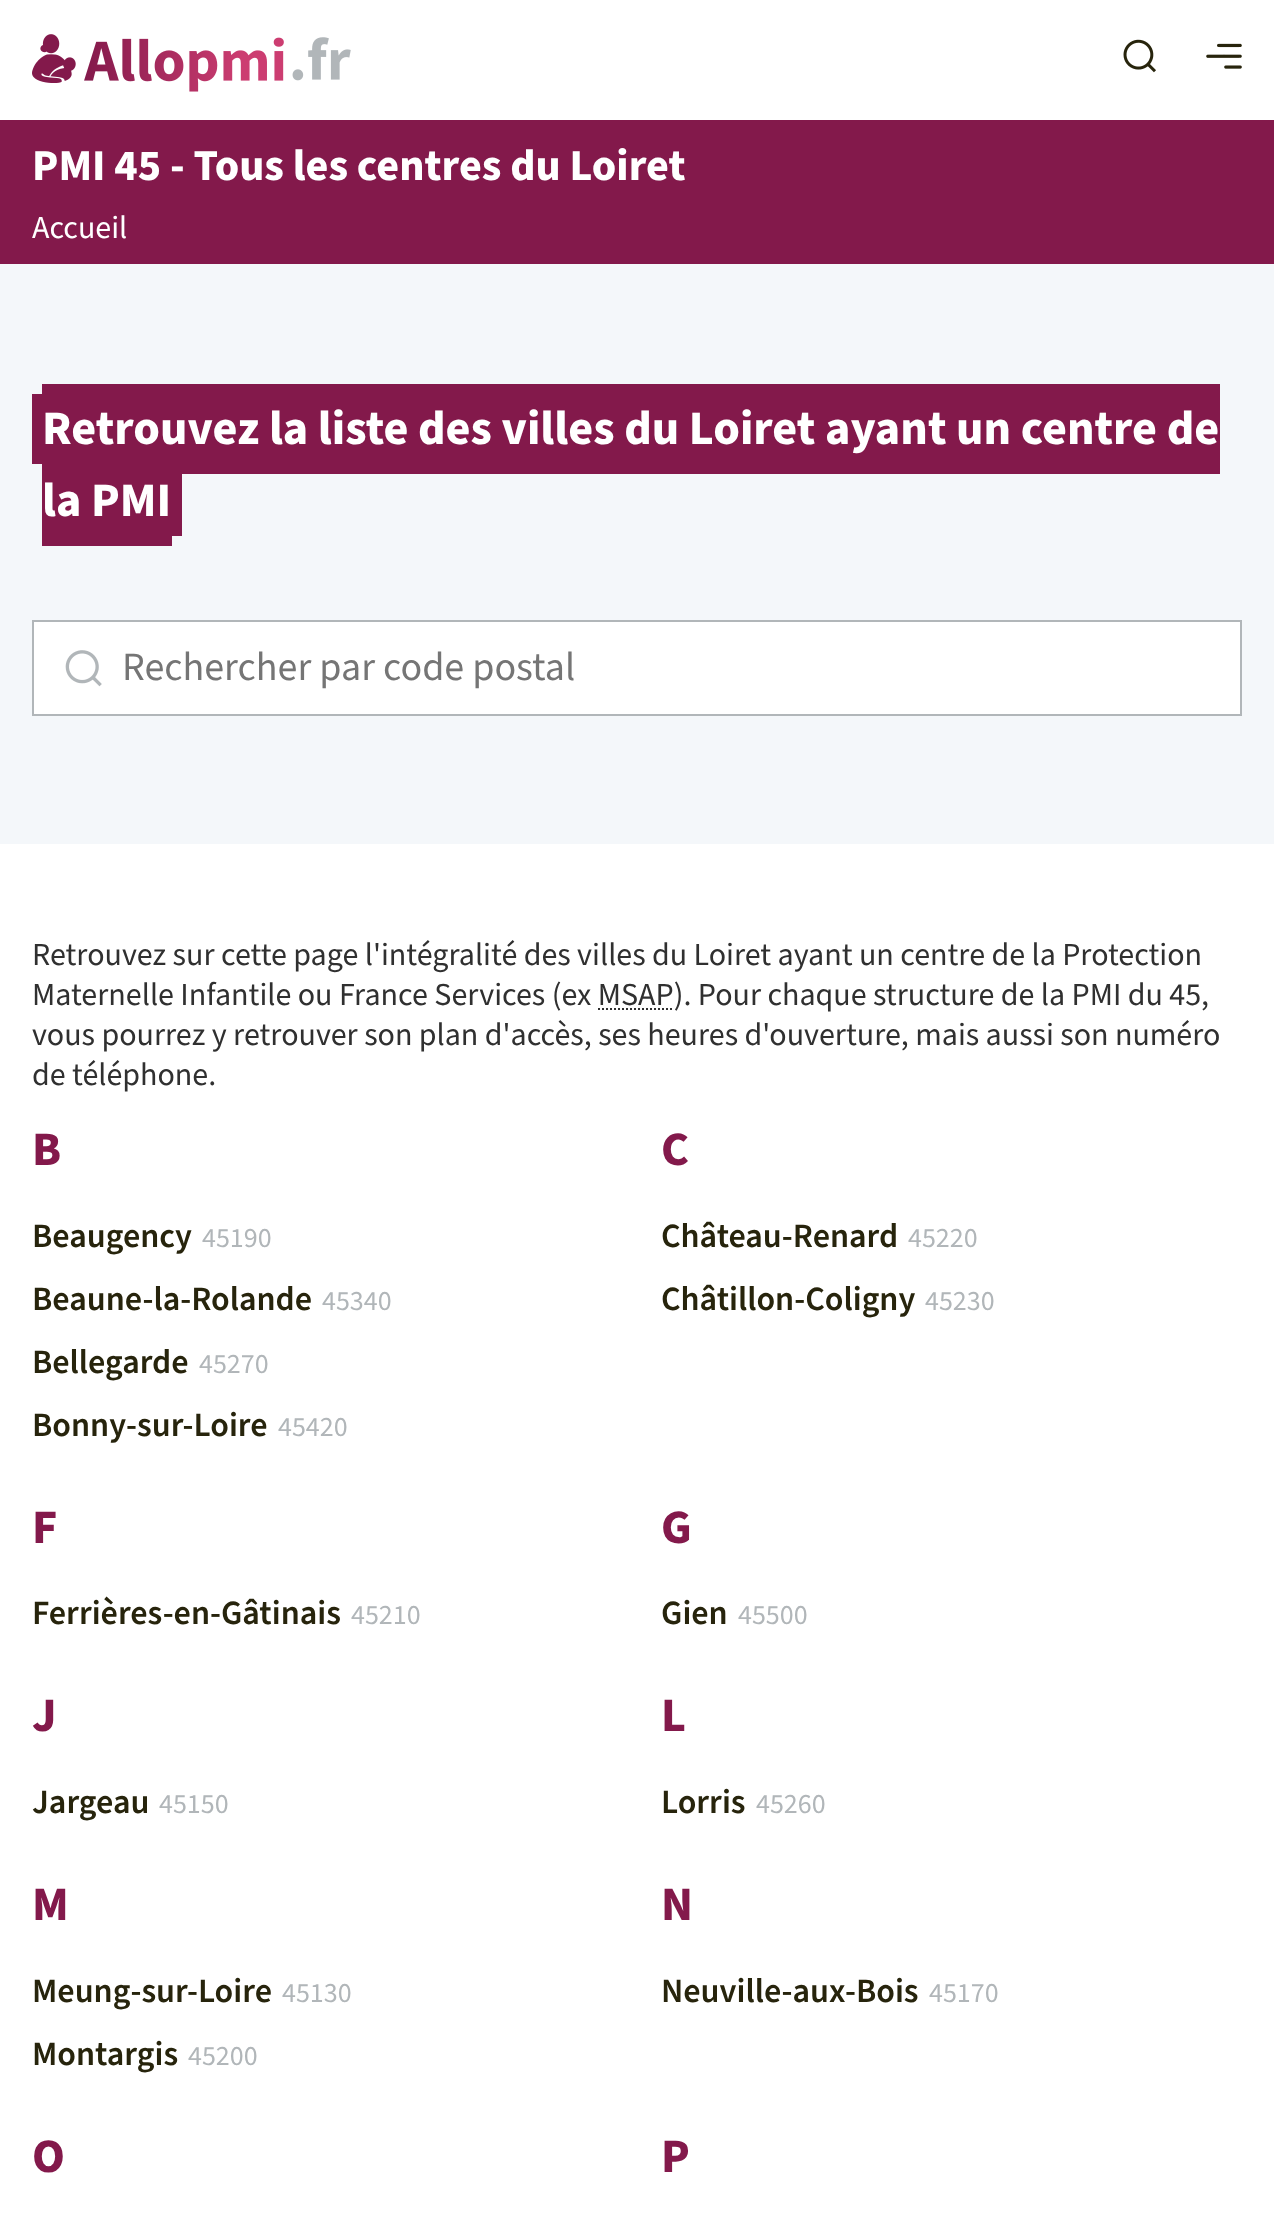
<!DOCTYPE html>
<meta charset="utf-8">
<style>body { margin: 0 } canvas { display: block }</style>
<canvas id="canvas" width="1274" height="2228"></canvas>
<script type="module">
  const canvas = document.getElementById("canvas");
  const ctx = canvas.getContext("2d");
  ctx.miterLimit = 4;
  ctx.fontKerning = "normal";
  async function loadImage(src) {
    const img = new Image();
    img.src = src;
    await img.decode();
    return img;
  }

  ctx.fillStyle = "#ffffff";
  ctx.fillRect(0, 0, 1274, 2228);
  ctx.drawImage(await loadImage("img1.png"), 32, 34, 319, 58);
  ctx.drawImage(await loadImage("img2.png"), 1123, 39, 33, 34);
  ctx.drawImage(await loadImage("img3.png"), 1206, 43, 36, 26);
  ctx.fillStyle = "#83194b";
  ctx.fillRect(0, 120, 1274, 144);
  ctx.font = "bold 44px Source Sans Pro";
  ctx.fillStyle = "#ffffff";
  ctx.fillText("PMI 45 - Tous les centres du Loiret", 32, 180);
  ctx.font = "32px Source Sans Pro";
  ctx.fillText("Accueil", 32, 238);
  ctx.fillStyle = "#f4f7fa";
  ctx.fillRect(0, 264, 1274, 580);
  ctx.fillStyle = "#83194b";
  ctx.fillRect(42, 384, 1178, 90);
  ctx.font = "bold 48px Source Sans Pro";
  ctx.fillStyle = "#ffffff";
  ctx.fillText("Retrouvez la liste des villes du Loiret ayant un centre de", 42, 444);
  ctx.fillStyle = "#83194b";
  ctx.fillRect(32, 394, 10, 70);
  ctx.fillRect(42, 474, 130, 72);
  ctx.fillStyle = "#ffffff";
  ctx.fillText("la PMI", 42, 516);
  ctx.fillStyle = "#83194b";
  ctx.fillRect(172, 474, 10, 62);
  ctx.fillStyle = "#ffffff";
  ctx.beginPath();
  ctx.rect(33, 621, 1208, 94);
  ctx.fill();
  ctx.strokeStyle = "#b1b6b9";
  ctx.lineWidth = 2;
  ctx.stroke();
  ctx.drawImage(await loadImage("img4.png"), 65, 650, 37, 37);
  ctx.font = "40px Source Sans Pro";
  ctx.fillStyle = "#757575";
  ctx.fillText("Rechercher par code postal", 122, 680);
  ctx.font = "32px Source Sans Pro";
  ctx.fillStyle = "#303030";
  ctx.fillText("Retrouvez sur cette page l'intégralité des villes du Loiret ayant un centre de la Protection", 32, 965);
  ctx.fillText("Maternelle Infantile ou France Services (ex MSAP). Pour chaque structure de la PMI du 45,", 32, 1005);
  ctx.beginPath();
  ctx.moveTo(598, 1009);
  ctx.lineTo(673.5, 1009);
  ctx.strokeStyle = "#303030";
  ctx.setLineDash([2, 2]);
  ctx.stroke();
  ctx.fillText("vous pourrez y retrouver son plan d'accès, ses heures d'ouverture, mais aussi son numéro", 32, 1045);
  ctx.fillText("de téléphone.", 32, 1085);
  ctx.font = "bold 48px Source Sans Pro";
  ctx.fillStyle = "#83194b";
  ctx.fillText("B", 32, 1165);
  ctx.font = "600 34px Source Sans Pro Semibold";
  ctx.fillStyle = "#27240c";
  ctx.fillText("Beaugency", 32, 1247);
  ctx.font = "28px Source Sans Pro";
  ctx.fillStyle = "#b1b6b9";
  ctx.fillText("45190", 202, 1247);
  ctx.font = "600 34px Source Sans Pro Semibold";
  ctx.fillStyle = "#27240c";
  ctx.fillText("Beaune-la-Rolande", 32, 1310);
  ctx.font = "28px Source Sans Pro";
  ctx.fillStyle = "#b1b6b9";
  ctx.fillText("45340", 322, 1310);
  ctx.font = "600 34px Source Sans Pro Semibold";
  ctx.fillStyle = "#27240c";
  ctx.fillText("Bellegarde", 32, 1373);
  ctx.font = "28px Source Sans Pro";
  ctx.fillStyle = "#b1b6b9";
  ctx.fillText("45270", 199, 1373);
  ctx.font = "600 34px Source Sans Pro Semibold";
  ctx.fillStyle = "#27240c";
  ctx.fillText("Bonny-sur-Loire", 32, 1436);
  ctx.font = "28px Source Sans Pro";
  ctx.fillStyle = "#b1b6b9";
  ctx.fillText("45420", 278, 1436);
  ctx.font = "bold 48px Source Sans Pro";
  ctx.fillStyle = "#83194b";
  ctx.fillText("C", 661, 1165);
  ctx.font = "600 34px Source Sans Pro Semibold";
  ctx.fillStyle = "#27240c";
  ctx.fillText("Château-Renard", 661, 1247);
  ctx.font = "28px Source Sans Pro";
  ctx.fillStyle = "#b1b6b9";
  ctx.fillText("45220", 908, 1247);
  ctx.font = "600 34px Source Sans Pro Semibold";
  ctx.fillStyle = "#27240c";
  ctx.fillText("Châtillon-Coligny", 661, 1310);
  ctx.font = "28px Source Sans Pro";
  ctx.fillStyle = "#b1b6b9";
  ctx.fillText("45230", 925, 1310);
  ctx.font = "bold 48px Source Sans Pro";
  ctx.fillStyle = "#83194b";
  ctx.fillText("F", 32, 1543);
  ctx.font = "600 34px Source Sans Pro Semibold";
  ctx.fillStyle = "#27240c";
  ctx.fillText("Ferrières-en-Gâtinais", 32, 1624);
  ctx.font = "28px Source Sans Pro";
  ctx.fillStyle = "#b1b6b9";
  ctx.fillText("45210", 351, 1624);
  ctx.font = "bold 48px Source Sans Pro";
  ctx.fillStyle = "#83194b";
  ctx.fillText("G", 661, 1543);
  ctx.font = "600 34px Source Sans Pro Semibold";
  ctx.fillStyle = "#27240c";
  ctx.fillText("Gien", 661, 1624);
  ctx.font = "28px Source Sans Pro";
  ctx.fillStyle = "#b1b6b9";
  ctx.fillText("45500", 738, 1624);
  ctx.font = "bold 48px Source Sans Pro";
  ctx.fillStyle = "#83194b";
  ctx.fillText("J", 32, 1731);
  ctx.font = "600 34px Source Sans Pro Semibold";
  ctx.fillStyle = "#27240c";
  ctx.fillText("Jargeau", 32, 1813);
  ctx.font = "28px Source Sans Pro";
  ctx.fillStyle = "#b1b6b9";
  ctx.fillText("45150", 159, 1813);
  ctx.font = "bold 48px Source Sans Pro";
  ctx.fillStyle = "#83194b";
  ctx.fillText("L", 661, 1731);
  ctx.font = "600 34px Source Sans Pro Semibold";
  ctx.fillStyle = "#27240c";
  ctx.fillText("Lorris", 661, 1813);
  ctx.font = "28px Source Sans Pro";
  ctx.fillStyle = "#b1b6b9";
  ctx.fillText("45260", 756, 1813);
  ctx.font = "bold 48px Source Sans Pro";
  ctx.fillStyle = "#83194b";
  ctx.fillText("M", 32, 1920);
  ctx.font = "600 34px Source Sans Pro Semibold";
  ctx.fillStyle = "#27240c";
  ctx.fillText("Meung-sur-Loire", 32, 2002);
  ctx.font = "28px Source Sans Pro";
  ctx.fillStyle = "#b1b6b9";
  ctx.fillText("45130", 282, 2002);
  ctx.font = "600 34px Source Sans Pro Semibold";
  ctx.fillStyle = "#27240c";
  ctx.fillText("Montargis", 32, 2065);
  ctx.font = "28px Source Sans Pro";
  ctx.fillStyle = "#b1b6b9";
  ctx.fillText("45200", 188, 2065);
  ctx.font = "bold 48px Source Sans Pro";
  ctx.fillStyle = "#83194b";
  ctx.fillText("N", 661, 1920);
  ctx.font = "600 34px Source Sans Pro Semibold";
  ctx.fillStyle = "#27240c";
  ctx.fillText("Neuville-aux-Bois", 661, 2002);
  ctx.font = "28px Source Sans Pro";
  ctx.fillStyle = "#b1b6b9";
  ctx.fillText("45170", 929, 2002);
  ctx.font = "bold 48px Source Sans Pro";
  ctx.fillStyle = "#83194b";
  ctx.fillText("O", 32, 2172);
  ctx.fillText("P", 661, 2172);
</script>
